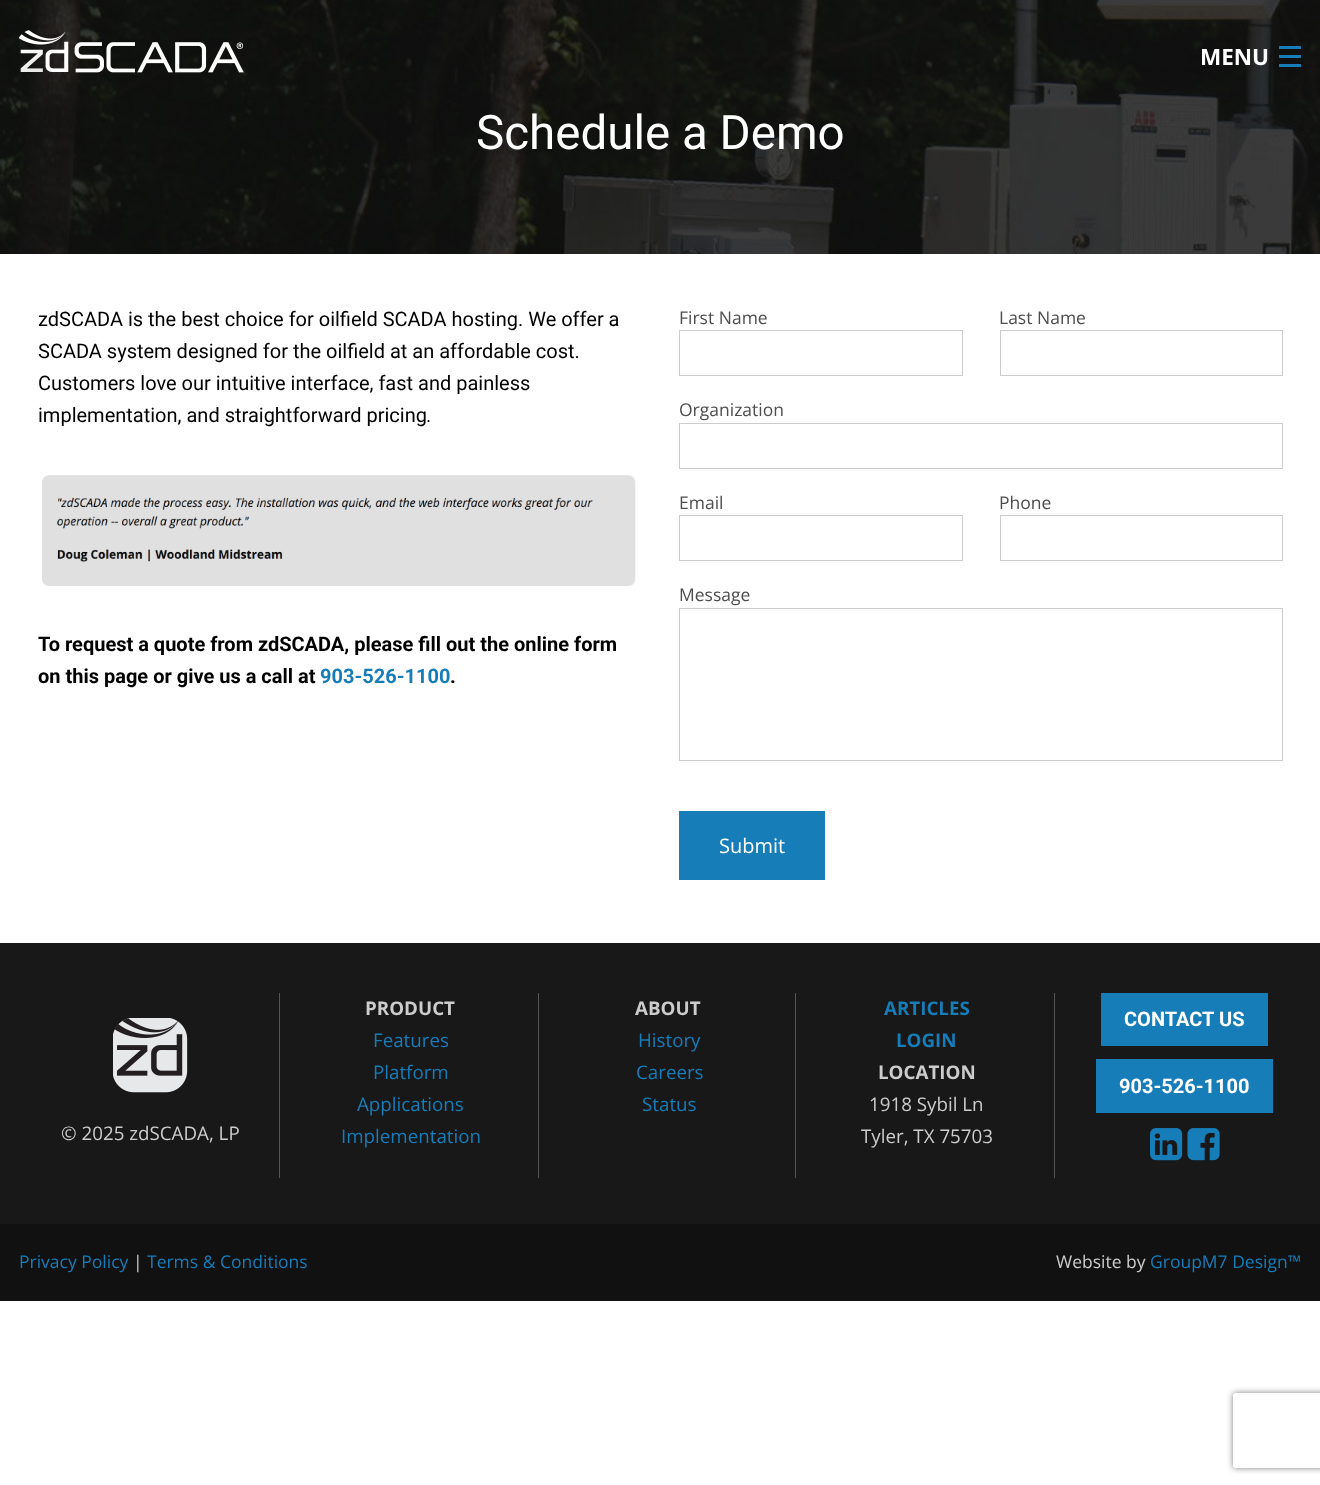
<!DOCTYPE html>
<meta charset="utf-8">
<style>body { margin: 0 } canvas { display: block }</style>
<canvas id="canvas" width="1320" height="1485"></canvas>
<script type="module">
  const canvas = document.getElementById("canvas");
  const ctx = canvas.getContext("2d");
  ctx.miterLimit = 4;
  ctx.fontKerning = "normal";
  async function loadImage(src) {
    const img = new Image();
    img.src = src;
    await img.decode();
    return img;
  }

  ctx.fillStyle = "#ffffff";
  ctx.fillRect(0, 0, 1320, 1485);
  ctx.drawImage(await loadImage("img1.png"), 0, 0, 1320, 254);
  ctx.drawImage(await loadImage("img2.png"), 19, 30, 225, 43);
  ctx.font = "bold 22.5px Open Sans";
  ctx.fillText("MENU", 1200, 65);
  ctx.fillStyle = "#167db9";
  ctx.fillRect(1279, 64, 22, 3);
  ctx.fillRect(1279, 55, 22, 3);
  ctx.fillRect(1279, 46, 22, 3);
  ctx.font = "47.5px Roboto";
  ctx.fillStyle = "#ffffff";
  ctx.fillText("Schedule a Demo", 476, 149);
  ctx.font = "20px Roboto";
  ctx.fillStyle = "#000000";
  ctx.fillText("zdSCADA is the best choice for oilfield SCADA hosting. We offer a", 38, 326);
  ctx.fillText("SCADA system designed for the oilfield at an affordable cost.", 38, 358);
  ctx.fillText("Customers love our intuitive interface, fast and painless", 38, 390);
  ctx.fillText("implementation, and straightforward pricing", 38, 422);
  ctx.font = "18px Liberation Sans";
  ctx.fillText(".", 426, 422);
  ctx.drawImage(await loadImage("img3.png"), 42, 475, 594, 111);
  ctx.font = "bold 20px Roboto";
  ctx.fillText("To request a quote from zdSCADA, please fill out the online form", 38, 651);
  ctx.fillText("on this page or give us a call at", 38, 683);
  ctx.fillStyle = "#167db9";
  ctx.fillText("903-526-1100", 320, 683);
  ctx.fillStyle = "#000000";
  ctx.fillText(".", 450, 683);
  ctx.font = "17.5px Open Sans";
  ctx.fillStyle = "#4d4d4d";
  ctx.fillText("First Name", 679, 324);
  ctx.strokeStyle = "#cccccc";
  ctx.strokeRect(679.5, 330.5, 283, 45);
  ctx.fillText("Last Name", 999, 324);
  ctx.strokeRect(1000.5, 330.5, 282, 45);
  ctx.fillText("Organization", 679, 416);
  ctx.strokeRect(679.5, 423.5, 603, 45);
  ctx.fillText("Email", 679, 509);
  ctx.strokeRect(679.5, 515.5, 283, 45);
  ctx.fillText("Phone", 999, 509);
  ctx.strokeRect(1000.5, 515.5, 282, 45);
  ctx.fillText("Message", 679, 601);
  ctx.strokeRect(679.5, 608.5, 603, 152);
  ctx.fillStyle = "#167db9";
  ctx.fillRect(679, 811, 146, 69);
  ctx.font = "20px Open Sans";
  ctx.fillStyle = "#ffffff";
  ctx.fillText("Submit", 719, 853);
  ctx.fillStyle = "#181818";
  ctx.fillRect(0, 943, 1320, 281);
  ctx.fillStyle = "#555555";
  ctx.fillRect(538, 993, 1, 185);
  ctx.font = "bold 18.75px Open Sans";
  ctx.fillStyle = "#cccccc";
  ctx.fillText("PRODUCT", 365, 1015);
  ctx.font = "18.75px Open Sans";
  ctx.fillStyle = "#167db9";
  ctx.fillText("Features", 373, 1047);
  ctx.fillText("Platform", 373, 1079);
  ctx.fillText("Applications", 357, 1111);
  ctx.fillText("Implementation", 341, 1143);
  ctx.fillStyle = "#555555";
  ctx.fillRect(795, 993, 1, 185);
  ctx.font = "bold 18.75px Open Sans";
  ctx.fillStyle = "#cccccc";
  ctx.fillText("ABOUT", 635, 1015);
  ctx.font = "18.75px Open Sans";
  ctx.fillStyle = "#167db9";
  ctx.fillText("History", 638, 1047);
  ctx.fillText("Careers", 636, 1079);
  ctx.fillText("Status", 642, 1111);
  ctx.fillStyle = "#555555";
  ctx.fillRect(1054, 993, 1, 185);
  ctx.font = "bold 18.75px Open Sans";
  ctx.fillStyle = "#167db9";
  ctx.fillText("ARTICLES", 884, 1015);
  ctx.fillText("LOGIN", 896, 1047);
  ctx.fillStyle = "#cccccc";
  ctx.fillText("LOCATION", 878, 1079);
  ctx.font = "18.75px Open Sans";
  ctx.fillText("1918 Sybil Ln", 869, 1111);
  ctx.fillText("Tyler, TX 75703", 861, 1143);
  ctx.fillStyle = "#167db9";
  ctx.fillRect(1101, 993, 167, 53);
  ctx.font = "bold 20px Roboto";
  ctx.fillStyle = "#ffffff";
  ctx.fillText("CONTACT US", 1124, 1026);
  ctx.fillStyle = "#167db9";
  ctx.fillRect(1096, 1059, 177, 54);
  ctx.fillStyle = "#ffffff";
  ctx.fillText("903-526-1100", 1119, 1093);
  ctx.drawImage(await loadImage("img4.png"), 1150, 1128, 33, 33);
  ctx.drawImage(await loadImage("img5.png"), 1187, 1128, 33, 33);
  ctx.fillStyle = "#555555";
  ctx.fillRect(279, 993, 1, 185);
  ctx.drawImage(await loadImage("img6.png"), 113, 1018, 75, 75);
  ctx.font = "18.75px Open Sans";
  ctx.fillStyle = "#cccccc";
  ctx.fillText("© 2025 zdSCADA, LP", 61, 1140);
  ctx.fillStyle = "#111111";
  ctx.fillRect(0, 1224, 1320, 77);
  ctx.font = "17.5px Open Sans";
  ctx.fillStyle = "#167db9";
  ctx.fillText("Privacy Policy", 19, 1268);
  ctx.fillStyle = "#cccccc";
  ctx.fillText("|", 133, 1268);
  ctx.fillStyle = "#167db9";
  ctx.fillText("Terms & Conditions", 147, 1268);
  ctx.fillStyle = "#cccccc";
  ctx.fillText("Website by", 1056, 1268);
  ctx.fillStyle = "#167db9";
  ctx.fillText("GroupM7 Design™", 1150, 1268);
  ctx.save();
  ctx.beginPath();
  ctx.moveTo(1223, 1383);
  ctx.lineTo(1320, 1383);
  ctx.lineTo(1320, 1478);
  ctx.lineTo(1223, 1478);
  ctx.closePath();
  ctx.moveTo(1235.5, 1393);
  ctx.lineTo(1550.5, 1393);
  ctx.bezierCurveTo(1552, 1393, 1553, 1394, 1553, 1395.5);
  ctx.lineTo(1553, 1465.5);
  ctx.bezierCurveTo(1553, 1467, 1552, 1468, 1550.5, 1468);
  ctx.lineTo(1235.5, 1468);
  ctx.bezierCurveTo(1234, 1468, 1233, 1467, 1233, 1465.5);
  ctx.lineTo(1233, 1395.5);
  ctx.bezierCurveTo(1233, 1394, 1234, 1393, 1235.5, 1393);
  ctx.closePath();
  ctx.clip("evenodd");
  ctx.fillStyle = "#808080";
  ctx.filter = "blur(3px)";
  ctx.beginPath();
  ctx.roundRect(1233, 1393, 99, 75, 2.5);
  ctx.fill();
  ctx.filter = "none";
  ctx.restore();
</script>
